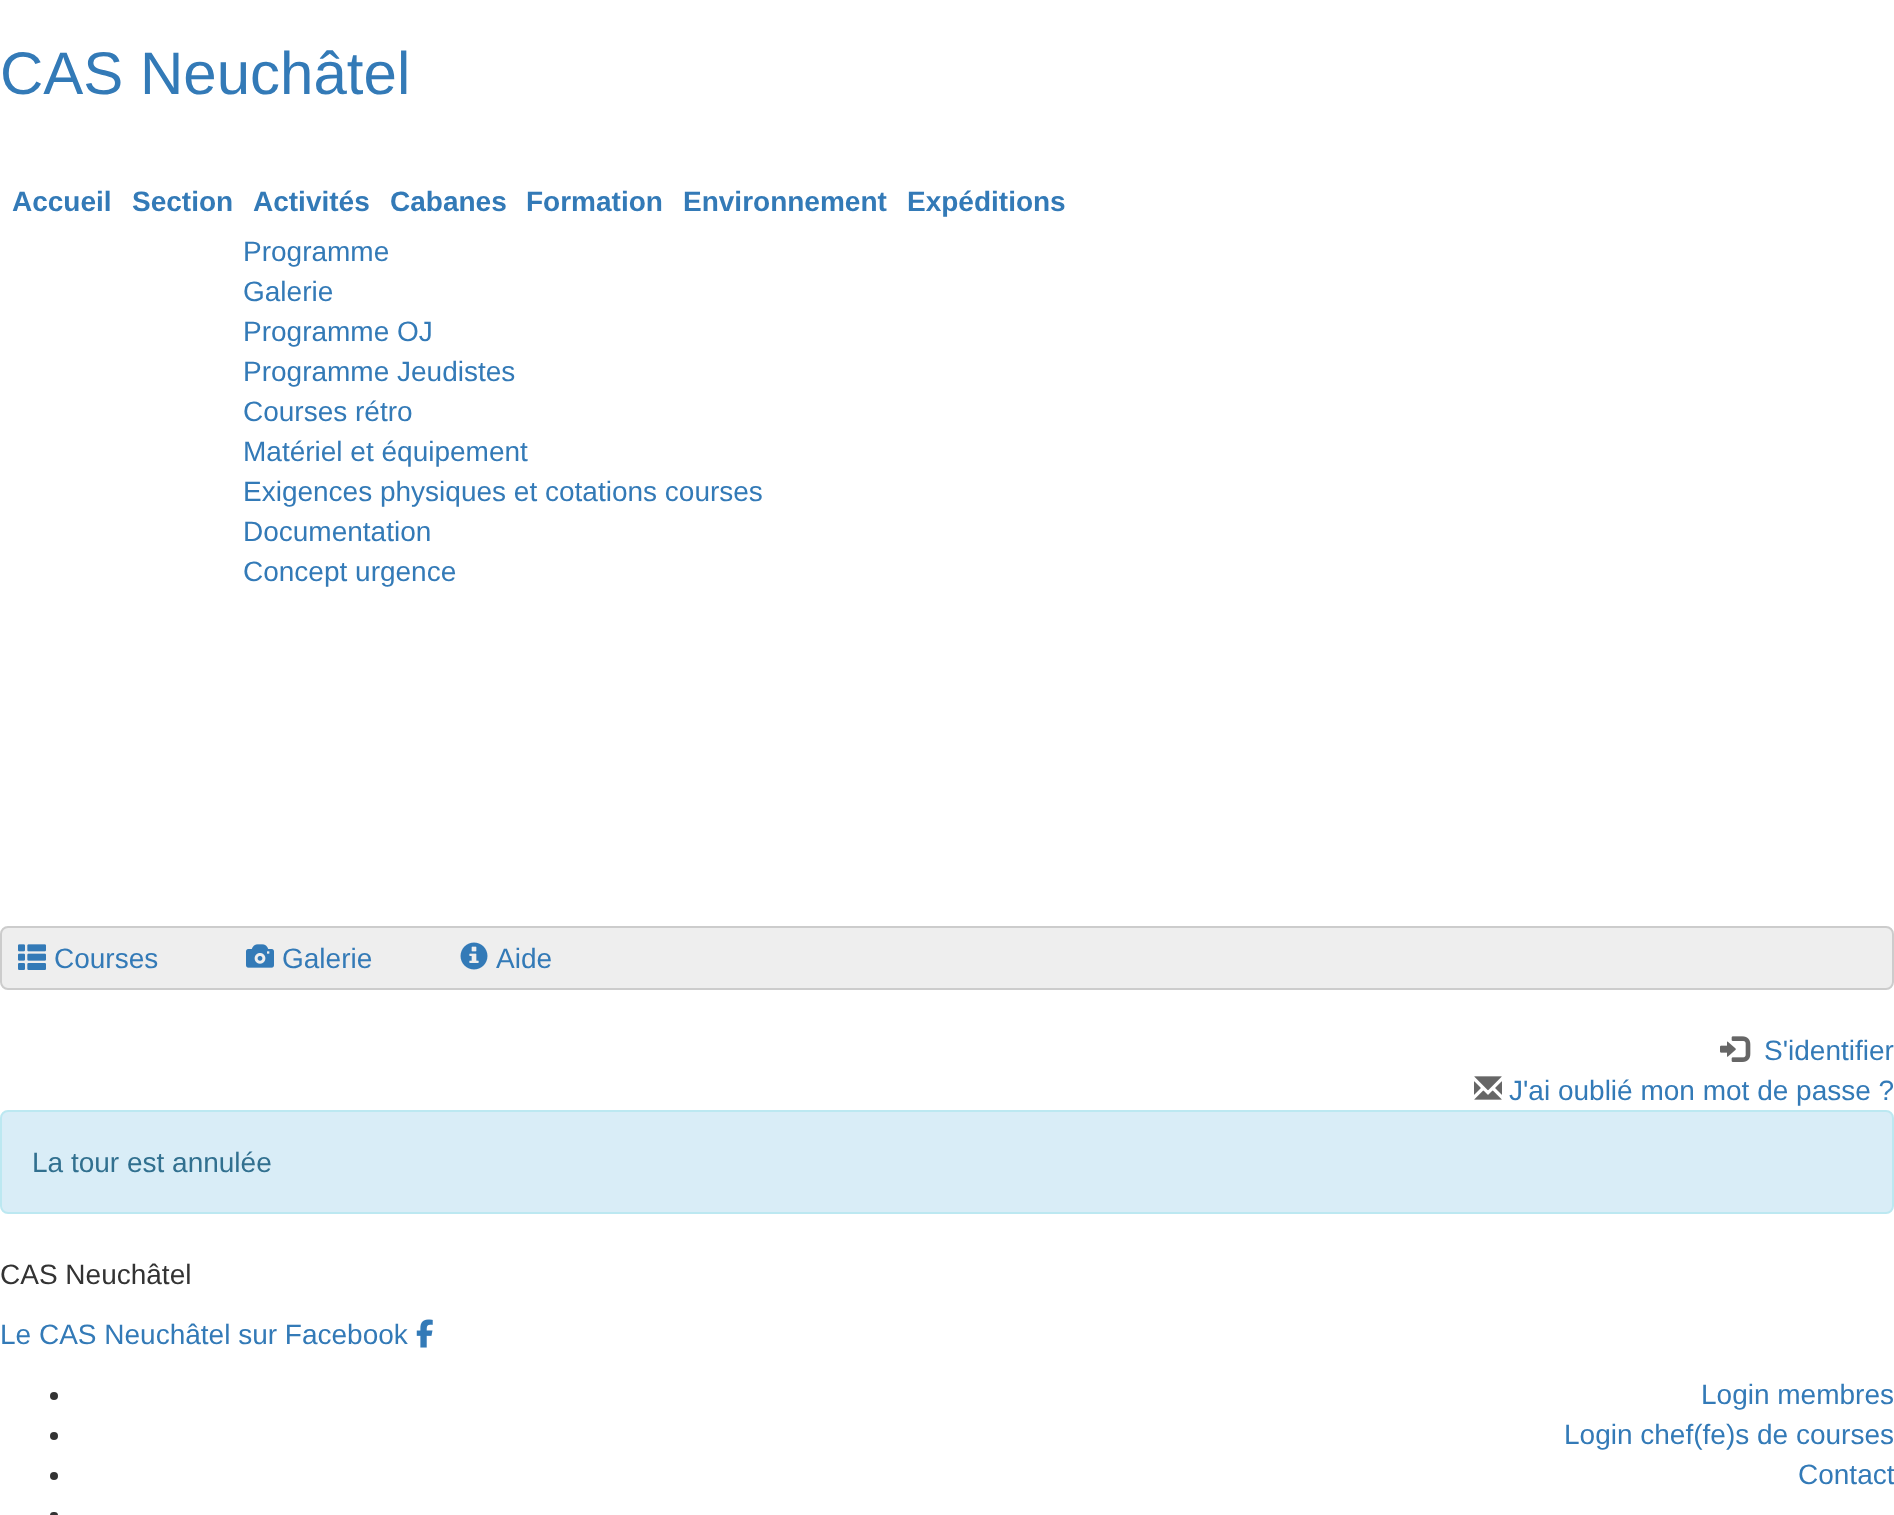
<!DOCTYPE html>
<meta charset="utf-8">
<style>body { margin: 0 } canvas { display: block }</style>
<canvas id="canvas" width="1894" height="1515"></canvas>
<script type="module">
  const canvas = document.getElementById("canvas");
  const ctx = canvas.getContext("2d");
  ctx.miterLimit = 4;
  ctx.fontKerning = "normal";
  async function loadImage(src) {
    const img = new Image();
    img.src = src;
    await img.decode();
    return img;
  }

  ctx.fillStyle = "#ffffff";
  ctx.fillRect(0, 0, 1894, 1515);
  ctx.font = "60px Liberation Sans";
  ctx.fillStyle = "#337ab7";
  ctx.fillText("CAS Neuchâtel", 0, 94);
  ctx.font = "bold 28px Liberation Sans";
  ctx.fillText("Accueil", 12, 211);
  ctx.fillText("Section", 132, 211);
  ctx.fillText("Activités", 253, 211);
  ctx.font = "28px Liberation Sans";
  ctx.fillText("Programme", 243, 261);
  ctx.fillText("Galerie", 243, 301);
  ctx.fillText("Programme OJ", 243, 341);
  ctx.fillText("Programme Jeudistes", 243, 381);
  ctx.fillText("Courses rétro", 243, 421);
  ctx.fillText("Matériel et équipement", 243, 461);
  ctx.fillText("Exigences physiques et cotations courses", 243, 501);
  ctx.fillText("Documentation", 243, 541);
  ctx.fillText("Concept urgence", 243, 581);
  ctx.font = "bold 28px Liberation Sans";
  ctx.fillText("Cabanes", 390, 211);
  ctx.fillText("Formation", 526, 211);
  ctx.fillText("Environnement", 683, 211);
  ctx.fillText("Expéditions", 907, 211);
  ctx.fillStyle = "#eeeeee";
  ctx.beginPath();
  ctx.roundRect(1, 927, 1892, 62, 7);
  ctx.fill();
  ctx.strokeStyle = "#cccccc";
  ctx.lineWidth = 2;
  ctx.stroke();
  ctx.drawImage(await loadImage("img1.png"), 18, 944, 28, 26);
  ctx.font = "28px Liberation Sans";
  ctx.fillStyle = "#337ab7";
  ctx.fillText("Courses", 54, 968);
  ctx.drawImage(await loadImage("img2.png"), 246, 944, 28, 24);
  ctx.fillText("Galerie", 282, 968);
  ctx.drawImage(await loadImage("img3.png"), 460, 942, 28, 28);
  ctx.fillText("Aide", 496, 968);
  ctx.drawImage(await loadImage("img4.png"), 1720, 1036, 31, 26);
  ctx.fillText("S'identifier", 1764, 1060);
  ctx.drawImage(await loadImage("img5.png"), 1474, 1076, 28, 24);
  ctx.fillText("J'ai oublié mon mot de passe ?", 1509, 1100);
  ctx.fillStyle = "#d9edf7";
  ctx.beginPath();
  ctx.roundRect(1, 1111, 1892, 102, 7);
  ctx.fill();
  ctx.strokeStyle = "#bce8f1";
  ctx.stroke();
  ctx.fillStyle = "#31708f";
  ctx.fillText("La tour est annulée", 32, 1172);
  ctx.fillStyle = "#333333";
  ctx.fillText("CAS Neuchâtel", 0, 1284);
  ctx.fillStyle = "#337ab7";
  ctx.fillText("Le CAS Neuchâtel sur Facebook", 0, 1344);
  ctx.drawImage(await loadImage("img6.png"), 416, 1319, 17, 29);
  ctx.fillStyle = "#333333";
  ctx.beginPath();
  ctx.arc(54, 1396, 4, 0, Math.PI * 2);
  ctx.fill();
  ctx.fillStyle = "#337ab7";
  ctx.fillText("Login membres", 1701, 1404);
  ctx.fillStyle = "#333333";
  ctx.beginPath();
  ctx.arc(54, 1436, 4, 0, Math.PI * 2);
  ctx.fill();
  ctx.fillStyle = "#337ab7";
  ctx.fillText("Login chef(fe)s de courses", 1564, 1444);
  ctx.fillStyle = "#333333";
  ctx.beginPath();
  ctx.arc(54, 1476, 4, 0, Math.PI * 2);
  ctx.fill();
  ctx.fillStyle = "#337ab7";
  ctx.fillText("Contact", 1798, 1484);
  ctx.fillStyle = "#333333";
  ctx.beginPath();
  ctx.roundRect(50, 1512, 8, 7, 4);
  ctx.fill();
</script>
